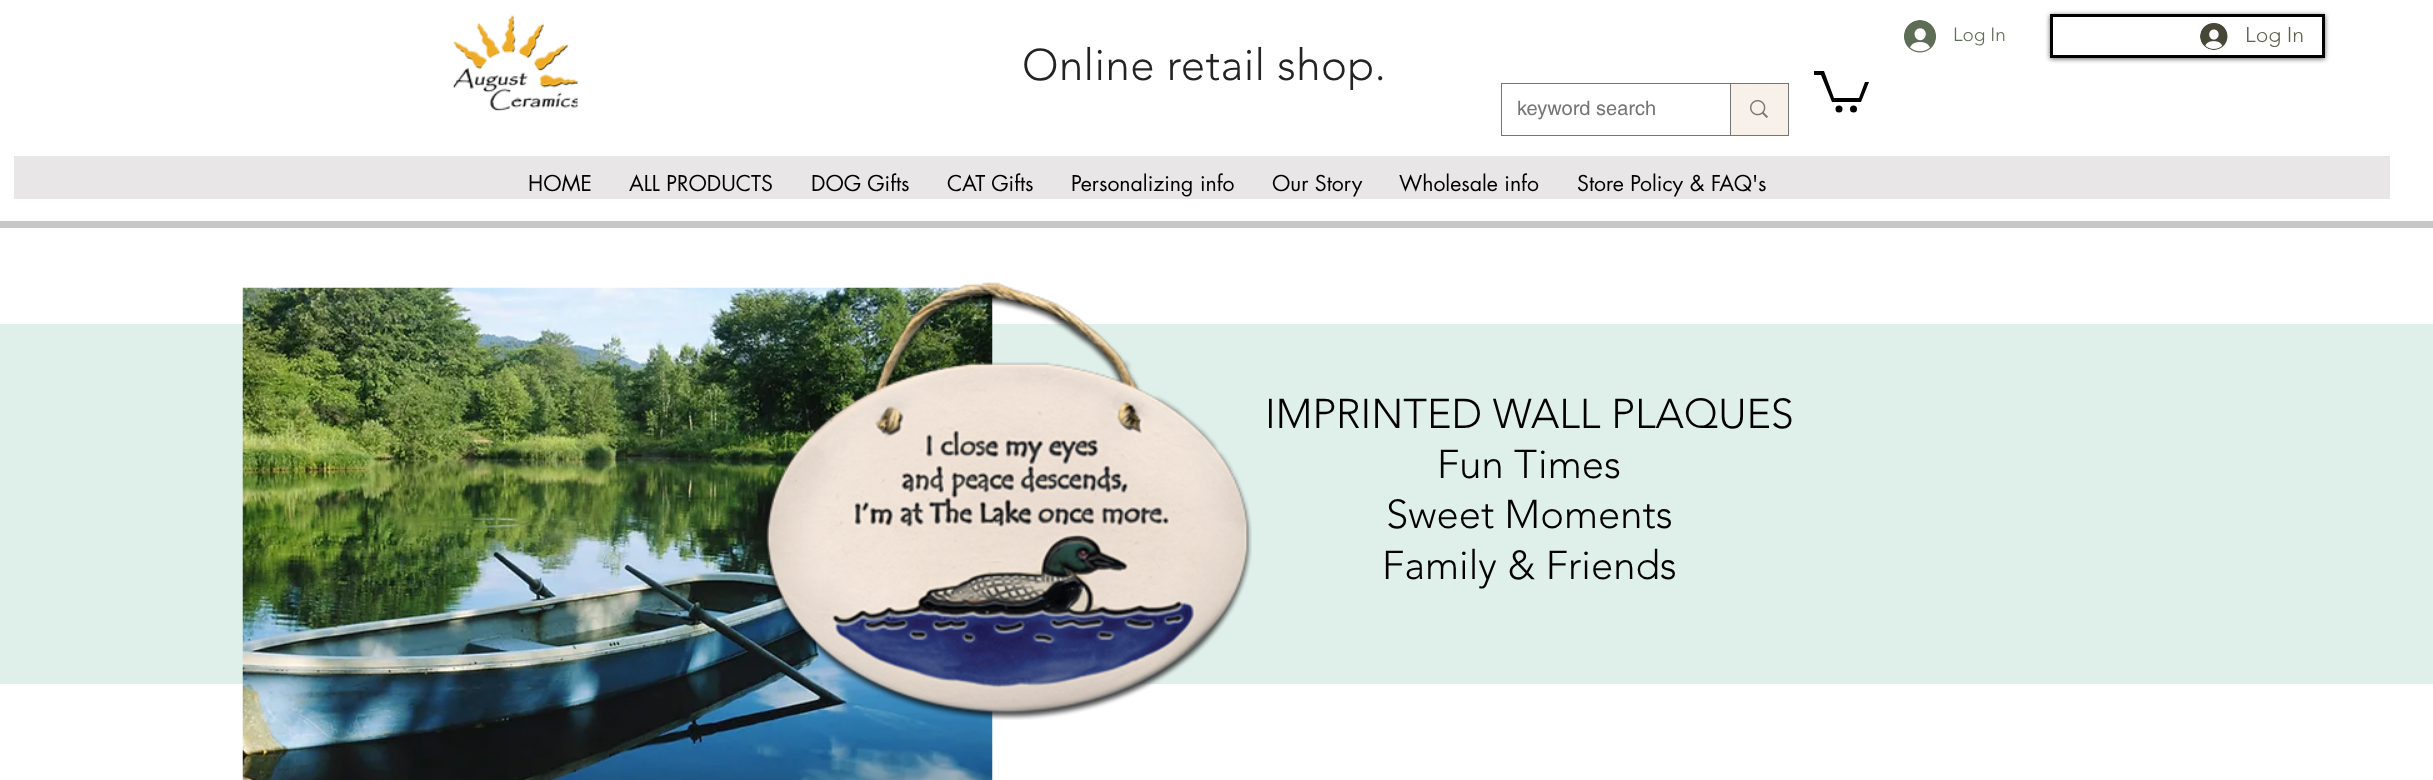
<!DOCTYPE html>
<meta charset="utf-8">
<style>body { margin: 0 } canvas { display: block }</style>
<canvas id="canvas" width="2433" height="780"></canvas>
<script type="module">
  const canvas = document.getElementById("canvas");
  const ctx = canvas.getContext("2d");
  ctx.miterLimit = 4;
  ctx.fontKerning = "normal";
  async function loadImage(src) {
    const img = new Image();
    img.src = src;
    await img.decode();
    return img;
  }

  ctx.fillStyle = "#ffffff";
  ctx.fillRect(0, 0, 2433, 780);
  ctx.drawImage(await loadImage("img1.png"), 453, 14, 125, 97);
  ctx.drawImage(await loadImage("img2.png"), 1904, 20, 32, 33);
  ctx.font = "300 19px 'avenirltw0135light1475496'";
  ctx.fillStyle = "#5e6d55";
  ctx.fillText("Log In", 1953, 41);
  ctx.save();
  ctx.beginPath();
  ctx.moveTo(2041, 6);
  ctx.lineTo(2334, 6);
  ctx.lineTo(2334, 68);
  ctx.lineTo(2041, 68);
  ctx.closePath();
  ctx.moveTo(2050, 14);
  ctx.lineTo(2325, 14);
  ctx.lineTo(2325, 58);
  ctx.lineTo(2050, 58);
  ctx.closePath();
  ctx.clip("evenodd");
  ctx.fillStyle = "rgba(0, 0, 0, 0.6)";
  ctx.filter = "blur(2.5px)";
  ctx.beginPath();
  ctx.rect(2050, 15, 275, 44);
  ctx.fill();
  ctx.filter = "none";
  ctx.restore();
  ctx.strokeStyle = "#000000";
  ctx.lineWidth = 3;
  ctx.strokeRect(2051.5, 15.5, 272, 41);
  ctx.drawImage(await loadImage("img3.png"), 2200, 23, 28, 27);
  ctx.font = "300 21.25px 'avenirltw0135light1475496'";
  ctx.fillStyle = "#5e5e4a";
  ctx.fillText("Log In", 2245, 42);
  ctx.letterSpacing = "0.4px";
  ctx.font = "300 43.75px 'avenirltw0135light1475496'";
  ctx.fillStyle = "#242323";
  ctx.fillText("Online retail shop.", 1022, 80);
  ctx.strokeStyle = "#757575";
  ctx.lineWidth = 1;
  ctx.strokeRect(1501.5, 83.5, 287, 52);
  ctx.letterSpacing = "0px";
  ctx.font = "20px helvetica";
  ctx.fillStyle = "#757575";
  ctx.fillText("keyword search", 1517, 115);
  ctx.fillStyle = "#f7f1e9";
  ctx.fillRect(1731, 84, 57, 51);
  ctx.fillStyle = "#757575";
  ctx.fillRect(1730, 84, 1, 51);
  ctx.drawImage(await loadImage("img4.png"), 1750, 100, 18, 18);
  ctx.fillStyle = "#e8e6e6";
  ctx.fillRect(14, 156, 2376, 43);
  ctx.font = "21.25px futura";
  ctx.fillStyle = "#000000";
  ctx.fillText("HOME", 528, 191);
  ctx.fillText("ALL PRODUCTS", 629, 191);
  ctx.fillText("DOG Gifts", 811, 191);
  ctx.fillText("CAT Gifts", 947, 191);
  ctx.fillText("Personalizing info", 1071, 191);
  ctx.fillText("Our Story", 1272, 191);
  ctx.fillText("Wholesale info", 1399, 191);
  ctx.fillText("Store Policy & FAQ's", 1577, 191);
  ctx.fillStyle = "#c7c7c7";
  ctx.fillRect(0, 221, 2433, 7);
  ctx.fillStyle = "#000000";
  ctx.beginPath();
  ctx.moveTo(1869, 82);
  ctx.lineTo(1861, 102);
  ctx.lineTo(1832, 102);
  ctx.lineTo(1821, 75);
  ctx.lineTo(1814, 75);
  ctx.lineTo(1814, 71);
  ctx.lineTo(1824, 71);
  ctx.lineTo(1834, 98);
  ctx.lineTo(1859, 98);
  ctx.lineTo(1865, 82);
  ctx.fill();
  ctx.beginPath();
  ctx.arc(1853.5, 109, 3.5, 0, Math.PI * 2);
  ctx.fill();
  ctx.beginPath();
  ctx.arc(1839, 109, 3.5, 0, Math.PI * 2);
  ctx.fill();
  ctx.fillStyle = "#dfefea";
  ctx.fillRect(0, 324, 2433, 360);
  ctx.drawImage(await loadImage("img6.png"), 242, 287, 751, 493);
  ctx.drawImage(await loadImage("img5.png"), 765, 282, 487, 438);
  ctx.font = "300 41.25px 'avenirltw0135light1475496'";
  ctx.fillStyle = "#000000";
  ctx.fillText("IMPRINTED WALL PLAQUES", 1265, 428);
  ctx.font = "300 40px 'avenirltw0135light1475496'";
  ctx.fillText("Fun Times", 1437, 478);
  ctx.fillText("Sweet Moments", 1386, 528);
  ctx.fillText("Family & Friends", 1382, 579);
</script>
